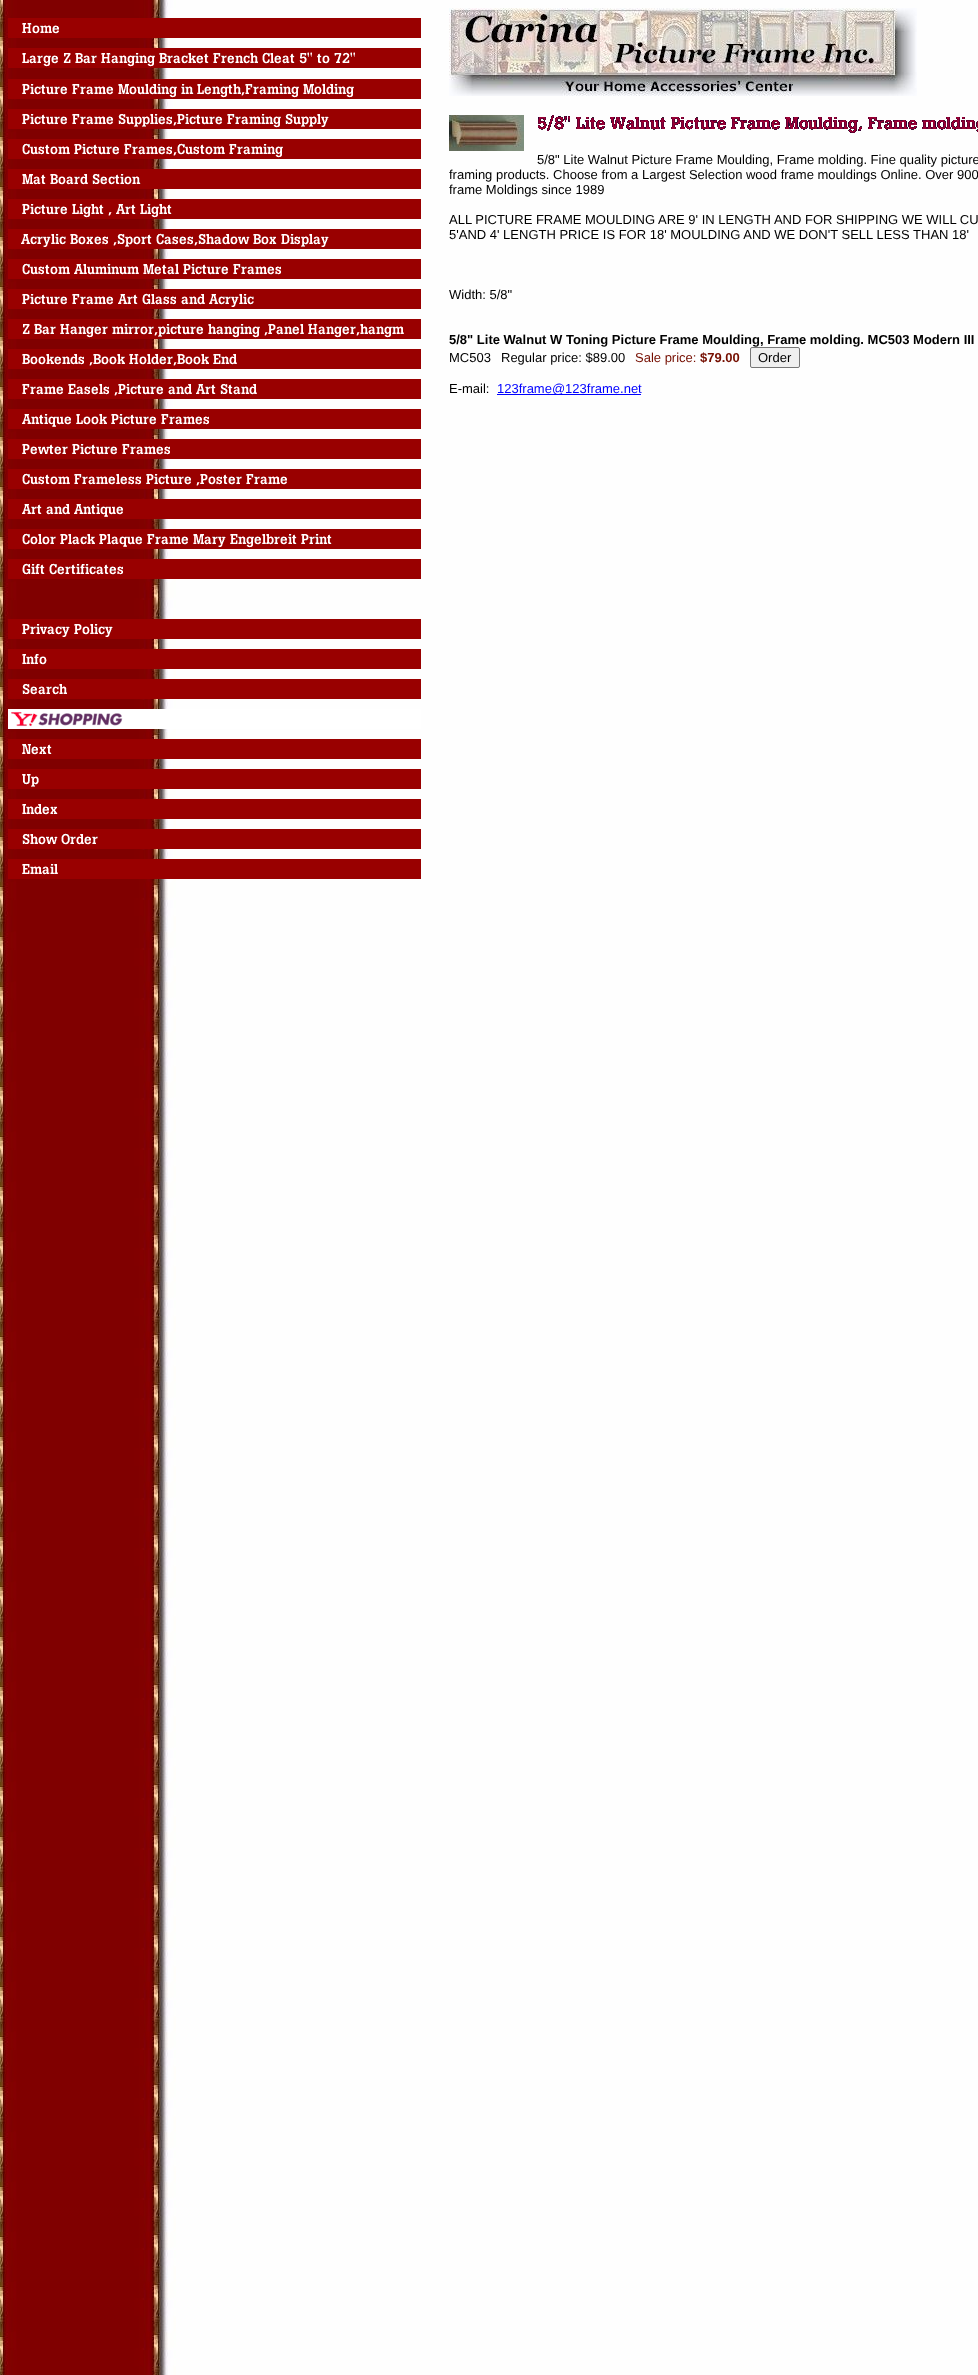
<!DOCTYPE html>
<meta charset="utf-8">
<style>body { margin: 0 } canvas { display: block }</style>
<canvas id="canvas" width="978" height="2375"></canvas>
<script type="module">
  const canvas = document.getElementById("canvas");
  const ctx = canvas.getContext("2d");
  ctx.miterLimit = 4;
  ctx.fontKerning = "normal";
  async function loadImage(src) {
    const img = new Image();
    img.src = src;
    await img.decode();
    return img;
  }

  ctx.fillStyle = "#ffffff";
  ctx.fillRect(0, 0, 978, 2375);
  ctx.drawImage(await loadImage("img1.png"), 0, 0, 978, 2375);
  ctx.drawImage(await loadImage("img2.png"), 8, 18, 413, 861);
  ctx.drawImage(await loadImage("img3.png"), 449, 8, 468, 88);
  ctx.drawImage(await loadImage("img4.png"), 449, 115, 75, 36);
  ctx.drawImage(await loadImage("img5.png"), 538, 115, 440, 18);
  ctx.font = "13px Liberation Sans";
  ctx.fillStyle = "#000000";
  ctx.fillText("5/8\" Lite Walnut Picture Frame Moulding, Frame molding. Fine quality picture", 537, 164);
  ctx.fillText("framing products. Choose from a Largest Selection wood frame mouldings Online. Over 900", 449, 179);
  ctx.fillText("frame Moldings since 1989", 449, 194);
  ctx.fillText("ALL PICTURE FRAME MOULDING ARE 9' IN LENGTH AND FOR SHIPPING WE WILL CU", 449, 224);
  ctx.fillText("5'AND 4' LENGTH PRICE IS FOR 18' MOULDING AND WE DON'T SELL LESS THAN 18'", 449, 239);
  ctx.fillText("Width: 5/8\"", 449, 299);
  ctx.font = "bold 13px Liberation Sans";
  ctx.fillText("5/8\" Lite Walnut W Toning Picture Frame Moulding, Frame molding. MC503 Modern III", 449, 344);
  ctx.font = "13px Liberation Sans";
  ctx.fillText("MC503", 449, 362);
  ctx.fillText("Regular price: $89.00", 501, 362);
  ctx.fillStyle = "#750e00";
  ctx.fillText("Sale price:", 635, 362);
  ctx.font = "bold 13px Liberation Sans";
  ctx.fillText("$79.00", 700, 362);
  ctx.fillStyle = "#efefef";
  ctx.beginPath();
  ctx.roundRect(750.5, 347.5, 49, 20, 1.5);
  ctx.fill();
  ctx.strokeStyle = "#767676";
  ctx.stroke();
  ctx.font = "13px Liberation Sans";
  ctx.fillStyle = "#000000";
  ctx.fillText("Order", 758, 362);
  ctx.fillText("E-mail:", 449, 393);
  ctx.fillStyle = "#0000ff";
  ctx.fillRect(497, 394, 144, 1);
  ctx.fillText("123frame@123frame.net", 497, 393);
</script>
